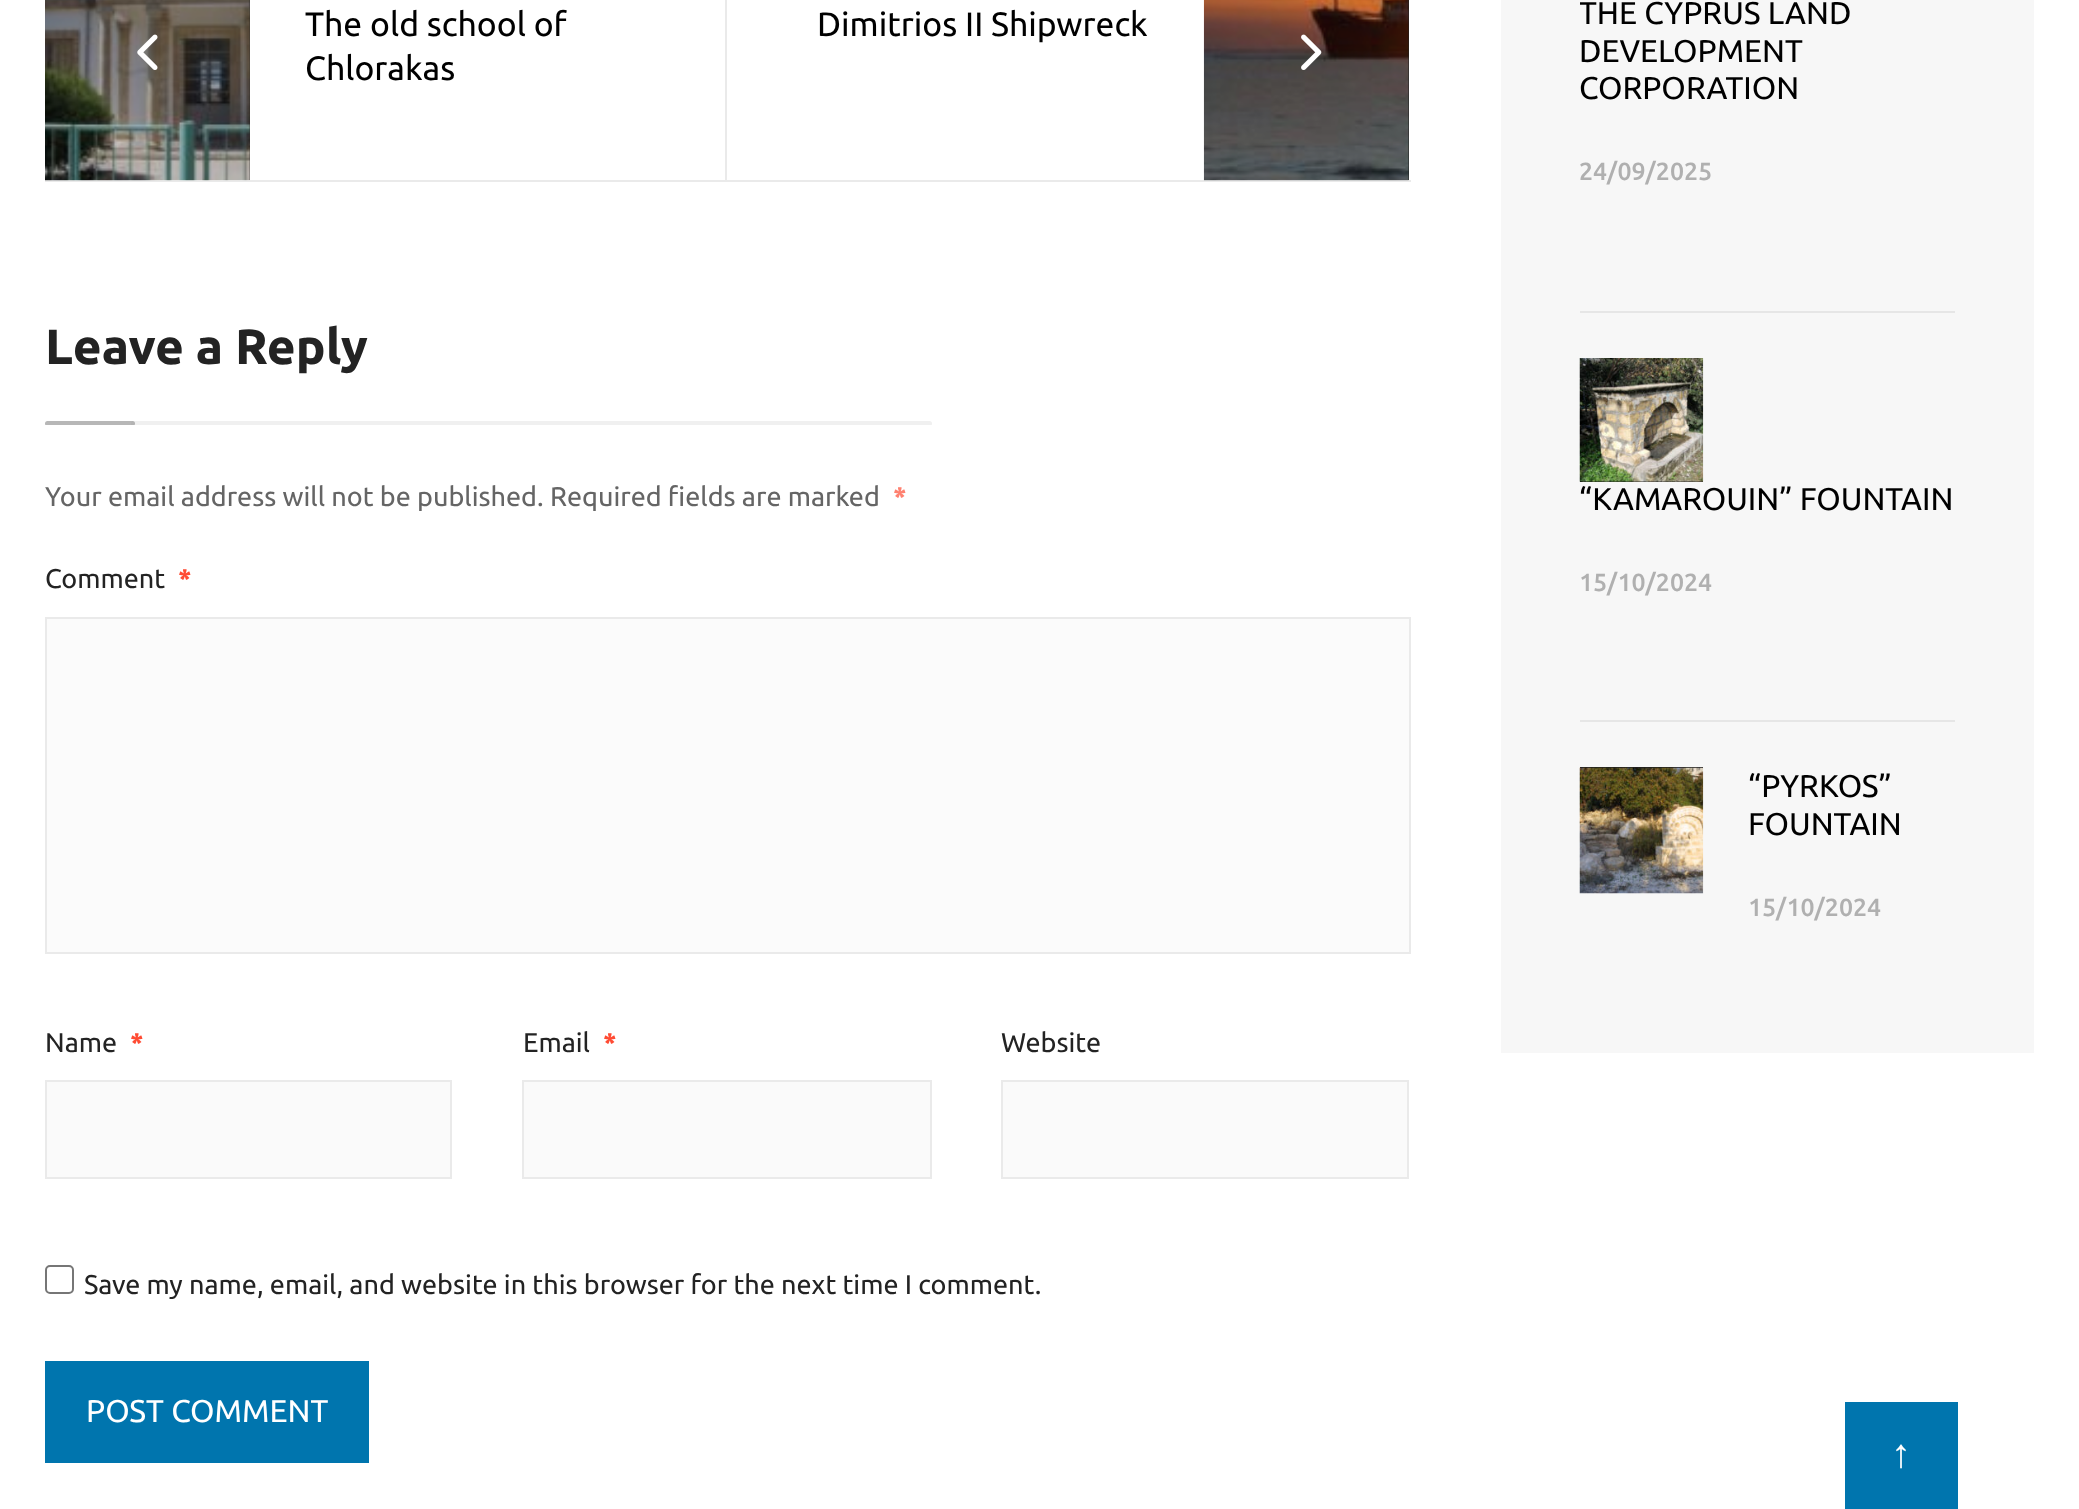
<!DOCTYPE html>
<meta charset="utf-8">
<style>body { margin: 0 } canvas { display: block }</style>
<canvas id="canvas" width="2079" height="1509"></canvas>
<script type="module">
  const canvas = document.getElementById("canvas");
  const ctx = canvas.getContext("2d");
  ctx.miterLimit = 4;
  ctx.fontKerning = "normal";
  async function loadImage(src) {
    const img = new Image();
    img.src = src;
    await img.decode();
    return img;
  }

  ctx.fillStyle = "#ffffff";
  ctx.fillRect(0, 0, 2079, 1509);
  ctx.fillStyle = "#eaeaea";
  ctx.fillRect(45, 180, 1366, 2);
  ctx.fillRect(725, 0, 2, 180);
  ctx.fillStyle = "#1e1e1e";
  ctx.fillRect(45, 0, 205, 180);
  ctx.drawImage(await loadImage("img1.png"), 45, 0, 205, 181);
  ctx.drawImage(await loadImage("img2.png"), 137, 34, 21, 36);
  ctx.font = "33.75px Ubuntu";
  ctx.fillStyle = "#000000";
  ctx.fillText("The old school of", 305, 36);
  ctx.fillText("Chlorakas", 305, 80);
  ctx.fillText("Dimitrios II Shipwreck", 817, 36);
  ctx.fillStyle = "#1e1e1e";
  ctx.fillRect(1204, 0, 205, 180);
  ctx.drawImage(await loadImage("img3.png"), 1203, 0, 206, 181);
  ctx.drawImage(await loadImage("img4.png"), 1301, 34, 21, 36);
  ctx.font = "bold 49.5px Ubuntu";
  ctx.fillStyle = "#232323";
  ctx.fillText("Leave a Reply", 45, 364);
  ctx.save();
  ctx.beginPath();
  ctx.rect(45, 317, 1366, 108);
  ctx.clip();
  ctx.fillStyle = "#f0f0f0";
  ctx.beginPath();
  ctx.roundRect(131, 421, 801, 5, 2.5);
  ctx.fill();
  ctx.fillStyle = "rgba(153, 153, 153, 0.7)";
  ctx.beginPath();
  ctx.roundRect(45, 421, 90, 5, 2.5);
  ctx.fill();
  ctx.restore();
  ctx.font = "27px Ubuntu";
  ctx.fillStyle = "#656565";
  ctx.fillText("Your email address will not be published. Required fields are marked", 45, 506);
  ctx.font = "bold 27px Ubuntu";
  ctx.fillStyle = "#ff8170";
  ctx.fillText("*", 893, 506);
  ctx.font = "27px Ubuntu";
  ctx.fillStyle = "#232323";
  ctx.fillText("Comment", 45, 588);
  ctx.font = "bold 27px Ubuntu";
  ctx.fillStyle = "#ff4b33";
  ctx.fillText("*", 178, 588);
  ctx.fillStyle = "#fbfbfb";
  ctx.beginPath();
  ctx.rect(46, 618, 1364, 335);
  ctx.fill();
  ctx.strokeStyle = "#eaeaea";
  ctx.lineWidth = 2;
  ctx.stroke();
  ctx.font = "27px Ubuntu";
  ctx.fillStyle = "#232323";
  ctx.fillText("Name", 45, 1052);
  ctx.font = "bold 27px Ubuntu";
  ctx.fillStyle = "#ff4b33";
  ctx.fillText("*", 130, 1052);
  ctx.fillStyle = "#fafafa";
  ctx.beginPath();
  ctx.rect(46, 1081, 405, 97);
  ctx.fill();
  ctx.stroke();
  ctx.font = "27px Ubuntu";
  ctx.fillStyle = "#232323";
  ctx.fillText("Email", 523, 1052);
  ctx.font = "bold 27px Ubuntu";
  ctx.fillStyle = "#ff4b33";
  ctx.fillText("*", 603, 1052);
  ctx.fillStyle = "#fafafa";
  ctx.beginPath();
  ctx.rect(523, 1081, 408, 97);
  ctx.fill();
  ctx.stroke();
  ctx.font = "27px Ubuntu";
  ctx.fillStyle = "#232323";
  ctx.fillText("Website", 1001, 1052);
  ctx.fillStyle = "#fafafa";
  ctx.beginPath();
  ctx.rect(1002, 1081, 406, 97);
  ctx.fill();
  ctx.stroke();
  ctx.beginPath();
  ctx.roundRect(46, 1266, 27, 27, 4);
  ctx.strokeStyle = "#767676";
  ctx.stroke();
  ctx.fillStyle = "#232323";
  ctx.fillText("Save my name, email, and website in this browser for the next time I comment.", 84, 1294);
  ctx.fillStyle = "#0075ae";
  ctx.fillRect(45, 1361, 324, 102);
  ctx.font = "31.5px Ubuntu";
  ctx.fillStyle = "#ffffff";
  ctx.fillText("POST COMMENT", 86, 1422);
  ctx.fillStyle = "#f7f7f7";
  ctx.fillRect(1501, 0, 533, 1053);
  ctx.save();
  ctx.beginPath();
  ctx.rect(1580, 0, 375, 311);
  ctx.clip();
  ctx.fillStyle = "#000000";
  ctx.fillText("THE CYPRUS LAND", 1579, 24);
  ctx.restore();
  ctx.fillStyle = "#000000";
  ctx.fillText("DEVELOPMENT", 1579, 62);
  ctx.fillText("CORPORATION", 1579, 99);
  ctx.font = "500 24.75px Ubuntu";
  ctx.fillStyle = "#b0b0b0";
  ctx.fillText("24/09/2025", 1579, 180);
  ctx.fillStyle = "#e6e6e6";
  ctx.fillRect(1580, 311, 375, 2);
  ctx.fillStyle = "#1e1e1e";
  ctx.fillRect(1580, 481, 123, 1);
  ctx.drawImage(await loadImage("img5.png"), 1579, 358, 125, 124);
  ctx.font = "31.5px Ubuntu";
  ctx.fillStyle = "#000000";
  ctx.fillText("“KAMAROUIN” FOUNTAIN", 1579, 510);
  ctx.font = "500 24.75px Ubuntu";
  ctx.fillStyle = "#b0b0b0";
  ctx.fillText("15/10/2024", 1579, 591);
  ctx.fillStyle = "#e6e6e6";
  ctx.fillRect(1580, 720, 375, 2);
  ctx.fillStyle = "#1e1e1e";
  ctx.fillRect(1580, 767, 123, 1);
  ctx.drawImage(await loadImage("img6.png"), 1579, 767, 125, 127);
  ctx.font = "31.5px Ubuntu";
  ctx.fillStyle = "#000000";
  ctx.fillText("“PYRKOS”", 1748, 797);
  ctx.fillText("FOUNTAIN", 1748, 835);
  ctx.font = "500 24.75px Ubuntu";
  ctx.fillStyle = "#b0b0b0";
  ctx.fillText("15/10/2024", 1748, 916);
  ctx.fillStyle = "#0075ae";
  ctx.fillRect(1845, 1402, 113, 107);
  ctx.font = "40px Liberation Serif";
  ctx.fillStyle = "#ffffff";
  ctx.fillText("↑", 1891, 1467);
</script>
